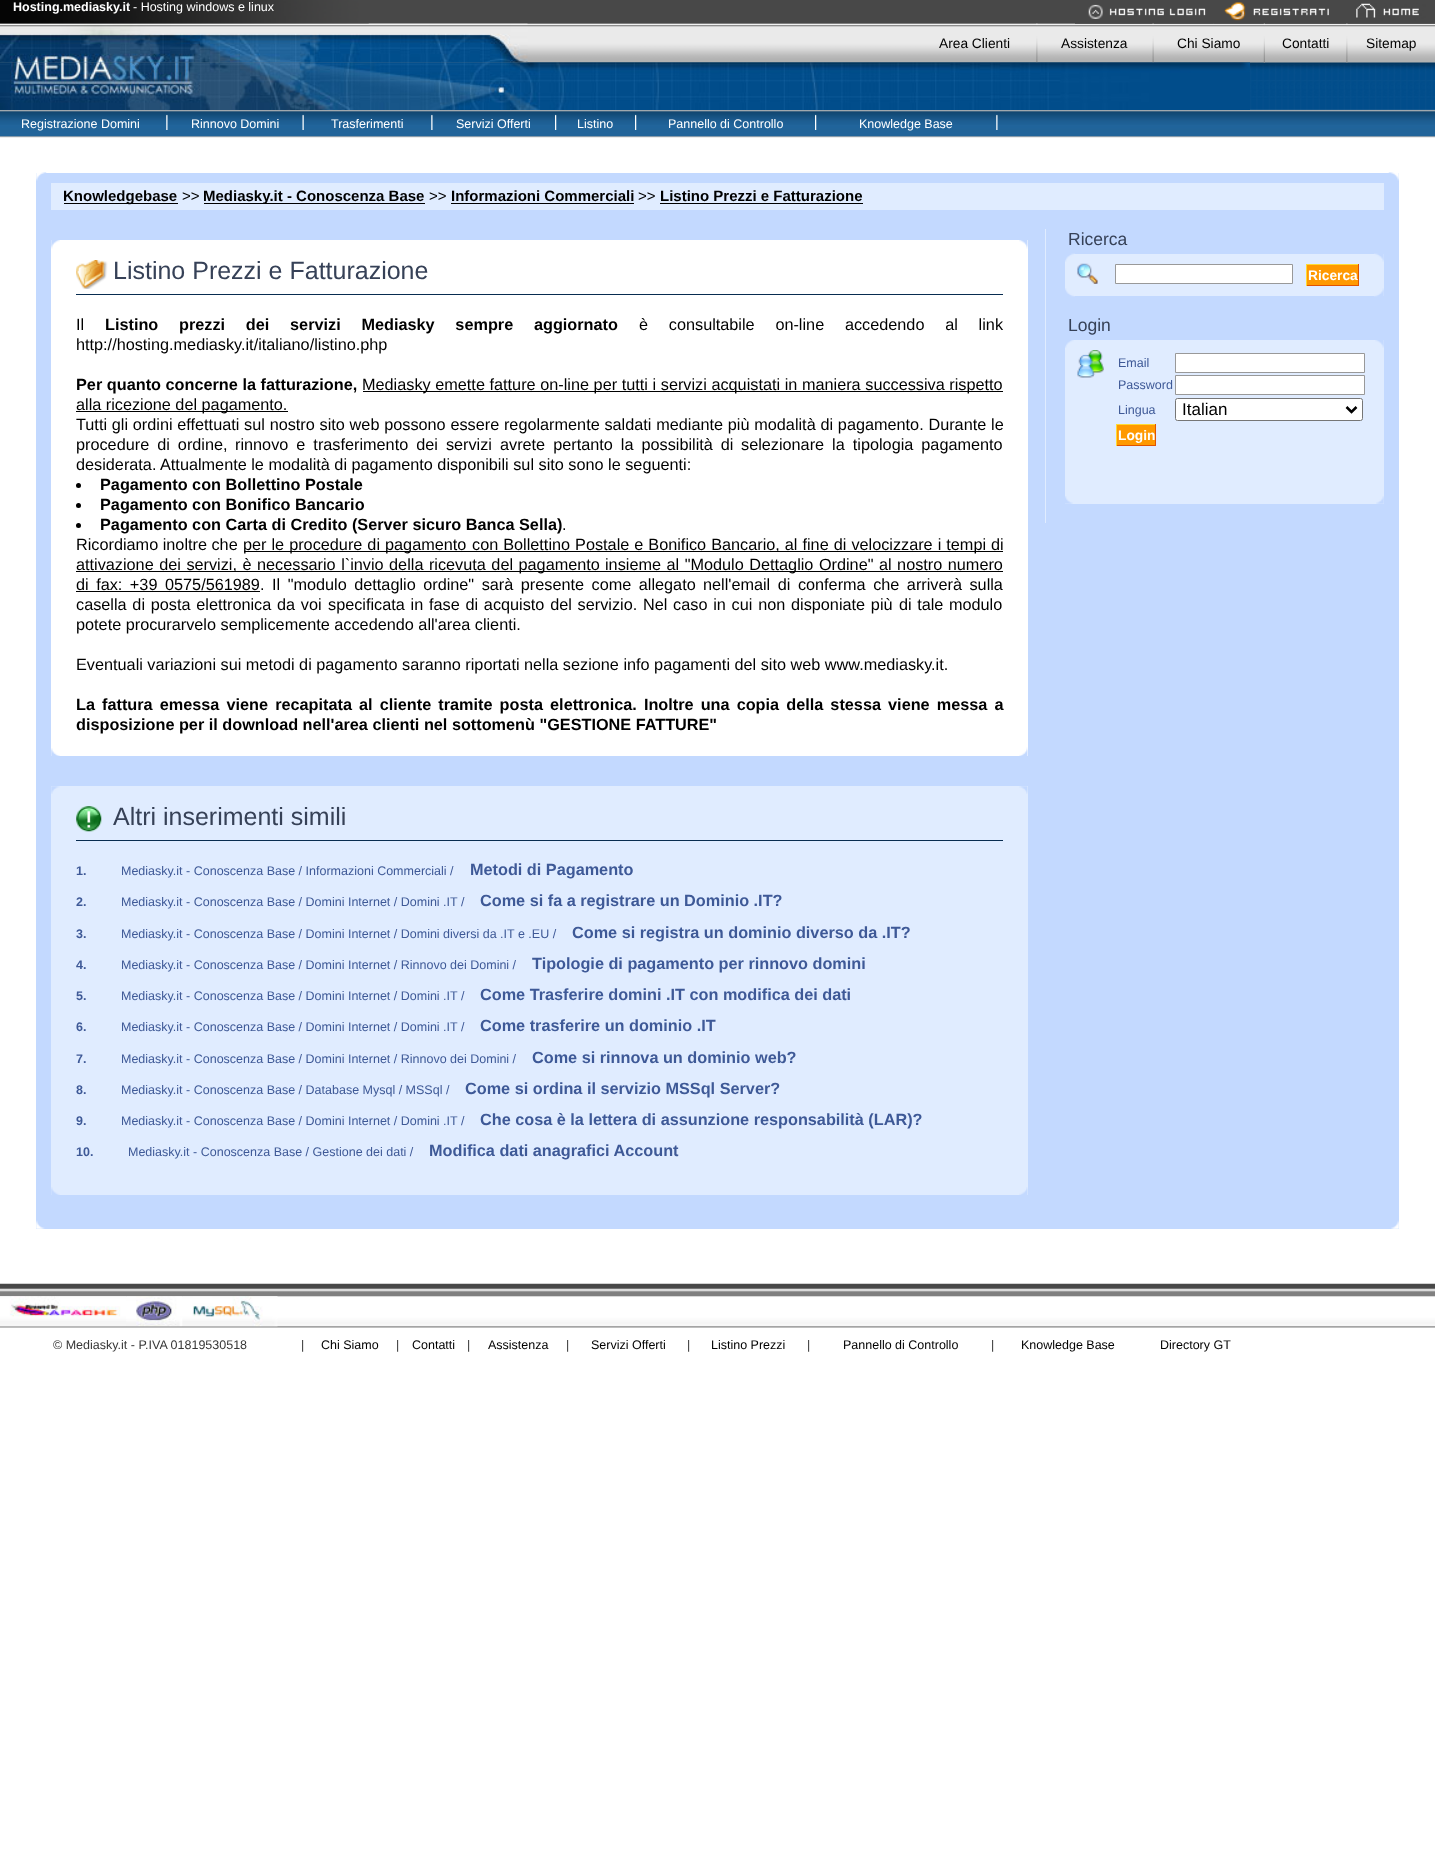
<!DOCTYPE html>
<meta charset="utf-8">
<style>body { margin: 0 } canvas { display: block }</style>
<canvas id="canvas" width="1435" height="1874"></canvas>
<script type="module">
  const canvas = document.getElementById("canvas");
  const ctx = canvas.getContext("2d");
  ctx.miterLimit = 4;
  ctx.fontKerning = "normal";
  async function loadImage(src) {
    const img = new Image();
    img.src = src;
    await img.decode();
    return img;
  }

  ctx.fillStyle = "#ffffff";
  ctx.fillRect(0, 0, 1435, 1874);
  ctx.drawImage(await loadImage("img1.png"), 0, 0, 1435, 138);
  ctx.drawImage(await loadImage("img2.png"), 0, 0, 369, 24);
  ctx.font = "bold 12.5px Liberation Sans";
  ctx.fillText("Hosting.mediasky.it", 13, 11);
  ctx.font = "12.5px Liberation Sans";
  ctx.fillText("- Hosting windows e linux", 133, 11);
  ctx.drawImage(await loadImage("img3.png"), 1075, 4, 139, 20);
  ctx.drawImage(await loadImage("img4.png"), 1213, 2, 127, 22);
  ctx.drawImage(await loadImage("img5.png"), 1340, 3, 95, 21);
  ctx.drawImage(await loadImage("img6.png"), 0, 23, 528, 40);
  ctx.font = "13.75px Liberation Sans";
  ctx.fillStyle = "#000000";
  ctx.fillText("Area Clienti", 939, 48);
  ctx.drawImage(await loadImage("img7.png"), 1036, 23, 2, 40);
  ctx.fillText("Assistenza", 1061, 48);
  ctx.drawImage(await loadImage("img8.png"), 1152, 23, 2, 40);
  ctx.fillText("Chi Siamo", 1177, 48);
  ctx.drawImage(await loadImage("img9.png"), 1263, 23, 2, 40);
  ctx.fillText("Contatti", 1282, 48);
  ctx.drawImage(await loadImage("img10.png"), 1346, 23, 2, 40);
  ctx.fillText("Sitemap", 1366, 48);
  ctx.drawImage(await loadImage("img11.png"), 0, 62, 1250, 48);
  ctx.font = "12.5px Liberation Sans";
  ctx.fillStyle = "#ffffff";
  ctx.fillText("Registrazione Domini", 21, 128);
  ctx.drawImage(await loadImage("img12.png"), 166, 114, 2, 16);
  ctx.fillText("Rinnovo Domini", 191, 128);
  ctx.drawImage(await loadImage("img13.png"), 302, 114, 2, 16);
  ctx.fillText("Trasferimenti", 331, 128);
  ctx.drawImage(await loadImage("img12.png"), 431, 114, 2, 16);
  ctx.fillText("Servizi Offerti", 456, 128);
  ctx.drawImage(await loadImage("img14.png"), 555, 114, 2, 16);
  ctx.fillText("Listino", 577, 128);
  ctx.drawImage(await loadImage("img14.png"), 635, 114, 2, 16);
  ctx.fillText("Pannello di Controllo", 668, 128);
  ctx.drawImage(await loadImage("img14.png"), 815, 114, 2, 16);
  ctx.fillText("Knowledge Base", 859, 128);
  ctx.drawImage(await loadImage("img12.png"), 996, 114, 2, 16);
  ctx.fillStyle = "#c3d9ff";
  ctx.fillRect(36, 173, 1363, 1056);
  ctx.drawImage(await loadImage("img15.png"), 1388, 172, 11, 9);
  ctx.drawImage(await loadImage("img16.png"), 36, 172, 11, 9);
  ctx.fillStyle = "#e0ecff";
  ctx.fillRect(51, 183, 1333, 27);
  ctx.fillStyle = "#000000";
  ctx.fillRect(64, 203, 114, 1);
  ctx.font = "bold 15px Liberation Sans";
  ctx.fillText("Knowledgebase", 63, 201);
  ctx.font = "15px Liberation Sans";
  ctx.fillText(">>", 182, 201);
  ctx.fillRect(204, 203, 221, 1);
  ctx.font = "bold 15px Liberation Sans";
  ctx.fillText("Mediasky.it - Conoscenza Base", 203, 201);
  ctx.font = "15px Liberation Sans";
  ctx.fillText(">>", 429, 201);
  ctx.font = "bold 15px Liberation Sans";
  ctx.fillText("Informazioni Commerciali", 451, 201);
  ctx.fillRect(451, 203, 183, 1);
  ctx.font = "15px Liberation Sans";
  ctx.fillText(">>", 638, 201);
  ctx.font = "bold 15px Liberation Sans";
  ctx.fillText("Listino Prezzi e Fatturazione", 660, 201);
  ctx.fillRect(660, 203, 203, 1);
  ctx.fillStyle = "#ffffff";
  ctx.fillRect(51, 240, 977, 516);
  ctx.drawImage(await loadImage("img17.png"), 1019, 240, 9, 9);
  ctx.drawImage(await loadImage("img18.png"), 51, 240, 9, 9);
  ctx.drawImage(await loadImage("img19.png"), 76, 260, 32, 29);
  ctx.fillStyle = "#082c50";
  ctx.fillRect(76, 294, 927, 1);
  ctx.font = "25px Liberation Sans";
  ctx.fillStyle = "#364157";
  ctx.fillText("Listino Prezzi e Fatturazione", 113, 279);
  ctx.font = "16.25px Liberation Sans";
  ctx.fillStyle = "#000000";
  ctx.fillText("Il", 76, 330);
  ctx.wordSpacing = "16.25px";
  ctx.font = "bold 16.25px Liberation Sans";
  ctx.fillText("Listino prezzi dei servizi Mediasky sempre aggiornato", 105, 330);
  ctx.font = "16.25px Liberation Sans";
  ctx.fillText("è consultabile on-line accedendo al link", 639, 330);
  ctx.wordSpacing = "0px";
  ctx.fillText("http://hosting.mediasky.it/italiano/listino.php", 76, 350);
  ctx.wordSpacing = "0.1px";
  ctx.font = "bold 16.25px Liberation Sans";
  ctx.fillText("Per quanto concerne la fatturazione,", 76, 390);
  ctx.fillRect(363, 391, 640, 1);
  ctx.font = "16.25px Liberation Sans";
  ctx.fillText("Mediasky emette fatture on-line per tutti i servizi acquistati in maniera successiva rispetto", 362, 390);
  ctx.fillRect(76, 411, 212, 1);
  ctx.wordSpacing = "0px";
  ctx.fillText("alla ricezione del pagamento.", 76, 410);
  ctx.wordSpacing = "0.25px";
  ctx.fillText("Tutti gli ordini effettuati sul nostro sito web possono essere regolarmente saldati mediante più modalità di pagamento. Durante le", 76, 430);
  ctx.wordSpacing = "3.5px";
  ctx.fillText("procedure di ordine,", 76, 450);
  ctx.fillText("rinnovo e trasferimento dei servizi avrete pertanto la possibilità di", 235, 450);
  ctx.fillText("selezionare la tipologia pagamento", 741, 450);
  ctx.wordSpacing = "0px";
  ctx.fillText("desiderata. Attualmente le modalità di pagamento disponibili sul sito sono le seguenti:", 76, 470);
  ctx.beginPath();
  ctx.arc(78.5, 485.5, 2.5, 0, Math.PI * 2);
  ctx.fill();
  ctx.font = "bold 16.25px Liberation Sans";
  ctx.fillText("Pagamento con Bollettino Postale", 100, 490);
  ctx.beginPath();
  ctx.arc(78.5, 505.5, 2.5, 0, Math.PI * 2);
  ctx.fill();
  ctx.fillText("Pagamento con Bonifico Bancario", 100, 510);
  ctx.beginPath();
  ctx.arc(78.5, 525.5, 2.5, 0, Math.PI * 2);
  ctx.fill();
  ctx.fillText("Pagamento con Carta di Credito (Server sicuro Banca Sella)", 100, 530);
  ctx.font = "16.25px Liberation Sans";
  ctx.fillText(".", 562, 530);
  ctx.fillText("Ricordiamo inoltre che", 76, 550);
  ctx.fillRect(244, 551, 759, 1);
  ctx.wordSpacing = "0.5px";
  ctx.fillText("per le procedure di pagamento", 243, 550);
  ctx.fillText("con Bollettino Postale e Bonifico Bancario, al fine di velocizzare i tempi di", 472, 550);
  ctx.fillRect(76, 571, 927, 1);
  ctx.wordSpacing = "1px";
  ctx.fillText("attivazione dei servizi, è necessario l`invio della ricevuta del pagamento", 76, 570);
  ctx.fillText("insieme al \"Modulo Dettaglio Ordine\" al nostro numero", 605, 570);
  ctx.wordSpacing = "3px";
  ctx.fillText("di fax: +39", 76, 590);
  ctx.wordSpacing = "0px";
  ctx.fillText("0575/561989", 165, 590);
  ctx.wordSpacing = "3px";
  ctx.fillText(". Il \"modulo dettaglio ordine\" sarà presente come allegato", 260, 590);
  ctx.fillRect(76, 591, 184, 1);
  ctx.fillText("nell'email di conferma che arriverà sulla", 703, 590);
  ctx.wordSpacing = "1.25px";
  ctx.fillText("casella di posta elettronica da voi", 76, 610);
  ctx.fillText("specificata in fase di acquisto del servizio. Nel caso in cui non disponiate più", 328, 610);
  ctx.wordSpacing = "1px";
  ctx.fillText("di tale modulo", 899, 610);
  ctx.wordSpacing = "0px";
  ctx.fillText("potete procurarvelo semplicemente accedendo all'area clienti.", 76, 630);
  ctx.fillText("Eventuali variazioni sui metodi di pagamento saranno riportati nella sezione info pagamenti del sito web www.mediasky.it.", 76, 670);
  ctx.wordSpacing = "2.6px";
  ctx.font = "bold 16.25px Liberation Sans";
  ctx.fillText("La fattura emessa viene recapitata al cliente tramite posta elettronica. Inoltre una copia della stessa viene messa a", 76, 710);
  ctx.wordSpacing = "0px";
  ctx.fillText("disposizione per il download nell'area clienti nel sottomenù \"GESTIONE FATTURE\"", 76, 730);
  ctx.drawImage(await loadImage("img20.png"), 1019, 747, 9, 9);
  ctx.drawImage(await loadImage("img21.png"), 51, 748, 9, 8);
  ctx.fillStyle = "#e0ecff";
  ctx.fillRect(1045, 229, 1, 294);
  ctx.font = "17.5px Liberation Sans";
  ctx.fillStyle = "#364157";
  ctx.fillText("Ricerca", 1068, 245);
  ctx.fillStyle = "#e0ecff";
  ctx.fillRect(1065, 254, 319, 42);
  ctx.drawImage(await loadImage("img22.png"), 1374, 253, 10, 9);
  ctx.drawImage(await loadImage("img23.png"), 1065, 253, 10, 9);
  ctx.drawImage(await loadImage("img24.png"), 1077, 263, 21, 21);
  ctx.fillStyle = "#ffffff";
  ctx.beginPath();
  ctx.rect(1115.5, 264.5, 177, 19);
  ctx.fill();
  ctx.strokeStyle = "#999999";
  ctx.stroke();
  ctx.fillStyle = "#ff9900";
  ctx.fillRect(1307, 265, 51, 20);
  ctx.fillStyle = "#ffdb33";
  ctx.fillRect(1306, 264, 53, 1);
  ctx.fillStyle = "#e15300";
  ctx.fillRect(1358, 264, 1, 22);
  ctx.fillRect(1306, 285, 53, 1);
  ctx.fillStyle = "#ffdb33";
  ctx.fillRect(1306, 264, 1, 22);
  ctx.font = "bold 13.75px Liberation Sans";
  ctx.fillStyle = "#ffffff";
  ctx.fillText("Ricerca", 1308, 280);
  ctx.drawImage(await loadImage("img25.png"), 1374, 288, 10, 9);
  ctx.drawImage(await loadImage("img26.png"), 1065, 288, 10, 9);
  ctx.font = "17.5px Liberation Sans";
  ctx.fillStyle = "#364157";
  ctx.fillText("Login", 1068, 331);
  ctx.fillStyle = "#e0ecff";
  ctx.fillRect(1065, 340, 319, 164);
  ctx.drawImage(await loadImage("img27.png"), 1375, 340, 9, 8);
  ctx.drawImage(await loadImage("img28.png"), 1065, 340, 9, 8);
  ctx.drawImage(await loadImage("img29.png"), 1077, 350, 27, 28);
  ctx.font = "12.5px Liberation Sans";
  ctx.fillStyle = "#3e5997";
  ctx.fillText("Email", 1118, 367);
  ctx.fillStyle = "#ffffff";
  ctx.beginPath();
  ctx.rect(1175.5, 353.5, 189, 19);
  ctx.fill();
  ctx.stroke();
  ctx.fillStyle = "#3e5997";
  ctx.fillText("Password", 1118, 389);
  ctx.fillStyle = "#ffffff";
  ctx.beginPath();
  ctx.rect(1175.5, 375.5, 189, 19);
  ctx.fill();
  ctx.stroke();
  ctx.fillStyle = "#3e5997";
  ctx.fillText("Lingua", 1118, 414);
  ctx.fillStyle = "#ffffff";
  ctx.beginPath();
  ctx.roundRect(1175.5, 398.5, 187, 22, 2);
  ctx.fill();
  ctx.strokeStyle = "#767676";
  ctx.stroke();
  ctx.beginPath();
  ctx.moveTo(1346.5, 407);
  ctx.lineTo(1351.5, 412);
  ctx.lineTo(1356.5, 407);
  ctx.strokeStyle = "#000000";
  ctx.lineWidth = 2.5;
  ctx.stroke();
  ctx.font = "17px Liberation Sans";
  ctx.fillStyle = "#000000";
  ctx.fillText("Italian", 1182, 415);
  ctx.fillStyle = "#ff9900";
  ctx.fillRect(1117, 425, 38, 20);
  ctx.fillStyle = "#ffdb33";
  ctx.fillRect(1116, 424, 40, 1);
  ctx.fillStyle = "#e15300";
  ctx.fillRect(1155, 424, 1, 22);
  ctx.fillRect(1116, 445, 40, 1);
  ctx.fillStyle = "#ffdb33";
  ctx.fillRect(1116, 424, 1, 22);
  ctx.font = "bold 13.75px Liberation Sans";
  ctx.fillStyle = "#ffffff";
  ctx.fillText("Login", 1118, 440);
  ctx.drawImage(await loadImage("img30.png"), 1376, 496, 8, 8);
  ctx.drawImage(await loadImage("img31.png"), 1065, 496, 8, 8);
  ctx.fillStyle = "#e0ecff";
  ctx.fillRect(51, 786, 977, 409);
  ctx.drawImage(await loadImage("img32.png"), 1019, 786, 9, 8);
  ctx.drawImage(await loadImage("img33.png"), 51, 786, 9, 8);
  ctx.drawImage(await loadImage("img34.png"), 76, 806, 26, 26);
  ctx.fillStyle = "#082c50";
  ctx.fillRect(76, 840, 927, 1);
  ctx.font = "25px Liberation Sans";
  ctx.fillStyle = "#364157";
  ctx.fillText("Altri inserimenti simili", 113, 825);
  ctx.font = "bold 12.5px Liberation Sans";
  ctx.fillStyle = "#3e5997";
  ctx.fillText("1.", 76, 875);
  ctx.font = "12.5px Liberation Sans";
  ctx.fillText("Mediasky.it - Conoscenza Base / Informazioni Commerciali /", 121, 875);
  ctx.font = "bold 16.25px Liberation Sans";
  ctx.fillText("Metodi di Pagamento", 470, 875);
  ctx.font = "bold 12.5px Liberation Sans";
  ctx.fillText("2.", 76, 906);
  ctx.font = "12.5px Liberation Sans";
  ctx.fillText("Mediasky.it - Conoscenza Base / Domini Internet / Domini .IT /", 121, 906);
  ctx.font = "bold 16.25px Liberation Sans";
  ctx.fillText("Come si fa a registrare un Dominio .IT?", 480, 906);
  ctx.font = "bold 12.5px Liberation Sans";
  ctx.fillText("3.", 76, 938);
  ctx.font = "12.5px Liberation Sans";
  ctx.fillText("Mediasky.it - Conoscenza Base / Domini Internet / Domini diversi da .IT e .EU /", 121, 938);
  ctx.font = "bold 16.25px Liberation Sans";
  ctx.fillText("Come si registra un dominio diverso da .IT?", 572, 938);
  ctx.font = "bold 12.5px Liberation Sans";
  ctx.fillText("4.", 76, 969);
  ctx.font = "12.5px Liberation Sans";
  ctx.fillText("Mediasky.it - Conoscenza Base / Domini Internet / Rinnovo dei Domini /", 121, 969);
  ctx.font = "bold 16.25px Liberation Sans";
  ctx.fillText("Tipologie di pagamento per rinnovo domini", 532, 969);
  ctx.font = "bold 12.5px Liberation Sans";
  ctx.fillText("5.", 76, 1000);
  ctx.font = "12.5px Liberation Sans";
  ctx.fillText("Mediasky.it - Conoscenza Base / Domini Internet / Domini .IT /", 121, 1000);
  ctx.font = "bold 16.25px Liberation Sans";
  ctx.fillText("Come Trasferire domini .IT con modifica dei dati", 480, 1000);
  ctx.font = "bold 12.5px Liberation Sans";
  ctx.fillText("6.", 76, 1031);
  ctx.font = "12.5px Liberation Sans";
  ctx.fillText("Mediasky.it - Conoscenza Base / Domini Internet / Domini .IT /", 121, 1031);
  ctx.font = "bold 16.25px Liberation Sans";
  ctx.fillText("Come trasferire un dominio .IT", 480, 1031);
  ctx.font = "bold 12.5px Liberation Sans";
  ctx.fillText("7.", 76, 1063);
  ctx.font = "12.5px Liberation Sans";
  ctx.fillText("Mediasky.it - Conoscenza Base / Domini Internet / Rinnovo dei Domini /", 121, 1063);
  ctx.font = "bold 16.25px Liberation Sans";
  ctx.fillText("Come si rinnova un dominio web?", 532, 1063);
  ctx.font = "bold 12.5px Liberation Sans";
  ctx.fillText("8.", 76, 1094);
  ctx.font = "12.5px Liberation Sans";
  ctx.fillText("Mediasky.it - Conoscenza Base / Database Mysql / MSSql /", 121, 1094);
  ctx.font = "bold 16.25px Liberation Sans";
  ctx.fillText("Come si ordina il servizio MSSql Server?", 465, 1094);
  ctx.font = "bold 12.5px Liberation Sans";
  ctx.fillText("9.", 76, 1125);
  ctx.font = "12.5px Liberation Sans";
  ctx.fillText("Mediasky.it - Conoscenza Base / Domini Internet / Domini .IT /", 121, 1125);
  ctx.font = "bold 16.25px Liberation Sans";
  ctx.fillText("Che cosa è la lettera di assunzione responsabilità (LAR)?", 480, 1125);
  ctx.font = "bold 12.5px Liberation Sans";
  ctx.fillText("10.", 76, 1156);
  ctx.font = "12.5px Liberation Sans";
  ctx.fillText("Mediasky.it - Conoscenza Base / Gestione dei dati /", 128, 1156);
  ctx.font = "bold 16.25px Liberation Sans";
  ctx.fillText("Modifica dati anagrafici Account", 429, 1156);
  ctx.drawImage(await loadImage("img35.png"), 1019, 1187, 9, 8);
  ctx.drawImage(await loadImage("img36.png"), 51, 1187, 9, 8);
  ctx.drawImage(await loadImage("img37.png"), 1391, 1220, 8, 9);
  ctx.drawImage(await loadImage("img38.png"), 36, 1220, 9, 9);
  ctx.drawImage(await loadImage("img39.png"), 0, 1283, 1435, 45);
  ctx.drawImage(await loadImage("img40.png"), 0, 1296, 127, 31);
  ctx.drawImage(await loadImage("img41.png"), 126, 1296, 57, 31);
  ctx.drawImage(await loadImage("img42.png"), 182, 1296, 96, 31);
  ctx.font = "12.5px Liberation Sans";
  ctx.fillStyle = "#373737";
  ctx.fillText("© Mediasky.it - P.IVA 01819530518", 53, 1349);
  ctx.fillText("|", 301, 1349);
  ctx.fillStyle = "#000000";
  ctx.fillText("Chi Siamo", 321, 1349);
  ctx.fillStyle = "#373737";
  ctx.fillText("|", 396, 1349);
  ctx.fillStyle = "#000000";
  ctx.fillText("Contatti", 412, 1349);
  ctx.fillStyle = "#373737";
  ctx.fillText("|", 467, 1349);
  ctx.fillStyle = "#000000";
  ctx.fillText("Assistenza", 488, 1349);
  ctx.fillStyle = "#373737";
  ctx.fillText("|", 566, 1349);
  ctx.fillStyle = "#000000";
  ctx.fillText("Servizi Offerti", 591, 1349);
  ctx.fillStyle = "#373737";
  ctx.fillText("|", 687, 1349);
  ctx.fillStyle = "#000000";
  ctx.fillText("Listino Prezzi", 711, 1349);
  ctx.fillStyle = "#373737";
  ctx.fillText("|", 807, 1349);
  ctx.fillStyle = "#000000";
  ctx.fillText("Pannello di Controllo", 843, 1349);
  ctx.fillStyle = "#373737";
  ctx.fillText("|", 991, 1349);
  ctx.fillStyle = "#000000";
  ctx.fillText("Knowledge Base", 1021, 1349);
  ctx.fillText("Directory GT", 1160, 1349);
</script>
